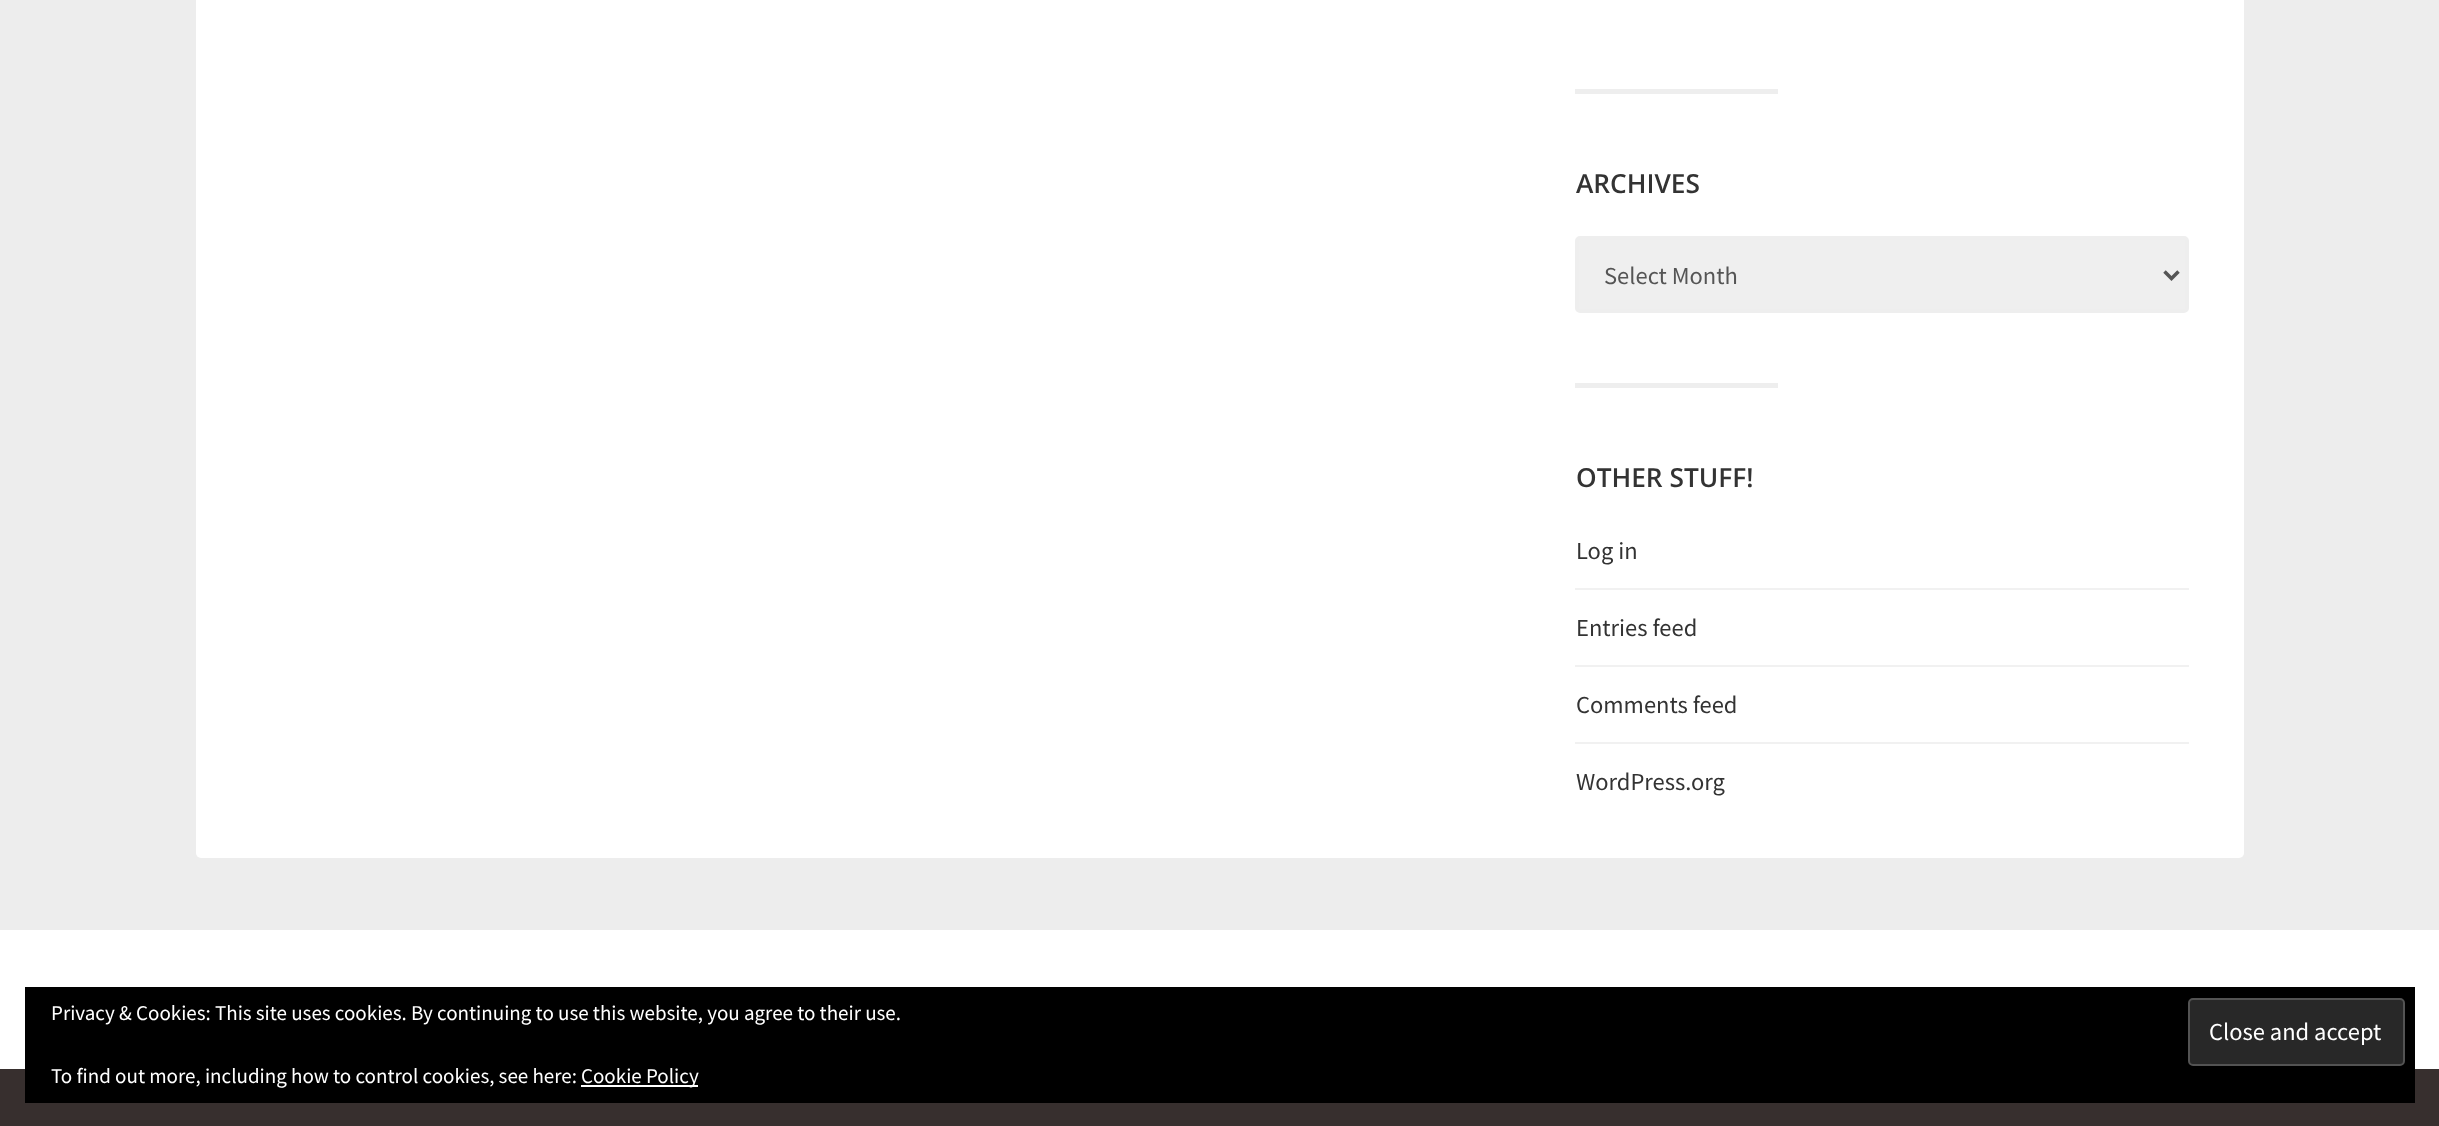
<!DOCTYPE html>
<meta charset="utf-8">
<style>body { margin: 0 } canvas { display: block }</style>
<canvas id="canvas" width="2439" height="1126"></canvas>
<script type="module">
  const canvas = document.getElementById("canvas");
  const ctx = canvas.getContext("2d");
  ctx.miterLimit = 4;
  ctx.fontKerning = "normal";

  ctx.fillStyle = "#ededed";
  ctx.fillRect(0, 0, 2439, 1126);
  ctx.fillStyle = "#ffffff";
  ctx.beginPath();
  ctx.roundRect(196, -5, 2048, 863, 5);
  ctx.fill();
  ctx.fillStyle = "#eeeeee";
  ctx.fillRect(1575, 89, 203, 5);
  ctx.font = "600 26.25px Open Sans";
  ctx.fillStyle = "#333333";
  ctx.fillText("ARCHIVES", 1576, 193);
  ctx.fillStyle = "#efefef";
  ctx.beginPath();
  ctx.roundRect(1577, 238, 610, 73, 3);
  ctx.fill();
  ctx.strokeStyle = "#eeeeee";
  ctx.lineWidth = 4;
  ctx.stroke();
  ctx.beginPath();
  ctx.moveTo(2164.5, 271.5);
  ctx.lineTo(2171.5, 278.5);
  ctx.lineTo(2178.5, 271.5);
  ctx.strokeStyle = "#555555";
  ctx.lineWidth = 3.5;
  ctx.stroke();
  ctx.font = "24.5px Source Sans Pro";
  ctx.fillStyle = "#555555";
  ctx.fillText("Select Month", 1604, 284);
  ctx.fillStyle = "#eeeeee";
  ctx.fillRect(1575, 383, 203, 5);
  ctx.font = "600 26.25px Open Sans";
  ctx.fillStyle = "#333333";
  ctx.fillText("OTHER STUFF!", 1576, 487);
  ctx.fillStyle = "#f1f1f1";
  ctx.fillRect(1575, 588, 614, 2);
  ctx.font = "24.5px Source Sans Pro";
  ctx.fillStyle = "#333333";
  ctx.fillText("Log in", 1576, 559);
  ctx.fillStyle = "#f1f1f1";
  ctx.fillRect(1575, 665, 614, 2);
  ctx.fillStyle = "#333333";
  ctx.fillText("Entries feed", 1576, 636);
  ctx.fillStyle = "#f1f1f1";
  ctx.fillRect(1575, 742, 614, 2);
  ctx.fillStyle = "#333333";
  ctx.fillText("Comments feed", 1576, 713);
  ctx.fillText("WordPress.org", 1576, 790);
  ctx.fillStyle = "#ffffff";
  ctx.fillRect(0, 930, 2439, 139);
  ctx.fillStyle = "#372f2e";
  ctx.fillRect(0, 1069, 2439, 57);
  ctx.fillStyle = "#000000";
  ctx.fillRect(25, 987, 2390, 116);
  ctx.font = "21px Source Sans Pro";
  ctx.fillStyle = "#ffffff";
  ctx.fillText("Privacy & Cookies: This site uses cookies. By continuing to use this website, you agree to their use.", 51, 1020);
  ctx.fillStyle = "#282828";
  ctx.beginPath();
  ctx.roundRect(2189, 999, 215, 66, 4);
  ctx.fill();
  ctx.strokeStyle = "#535353";
  ctx.lineWidth = 2;
  ctx.stroke();
  ctx.font = "24.5px Source Sans Pro";
  ctx.fillStyle = "#ffffff";
  ctx.fillText("Close and accept", 2209, 1040);
  ctx.font = "21px Source Sans Pro";
  ctx.fillText("To find out more, including how to control cookies, see here:", 51, 1083);
  ctx.fillRect(581, 1085, 117, 2);
  ctx.fillText("Cookie Policy", 581, 1083);
</script>
